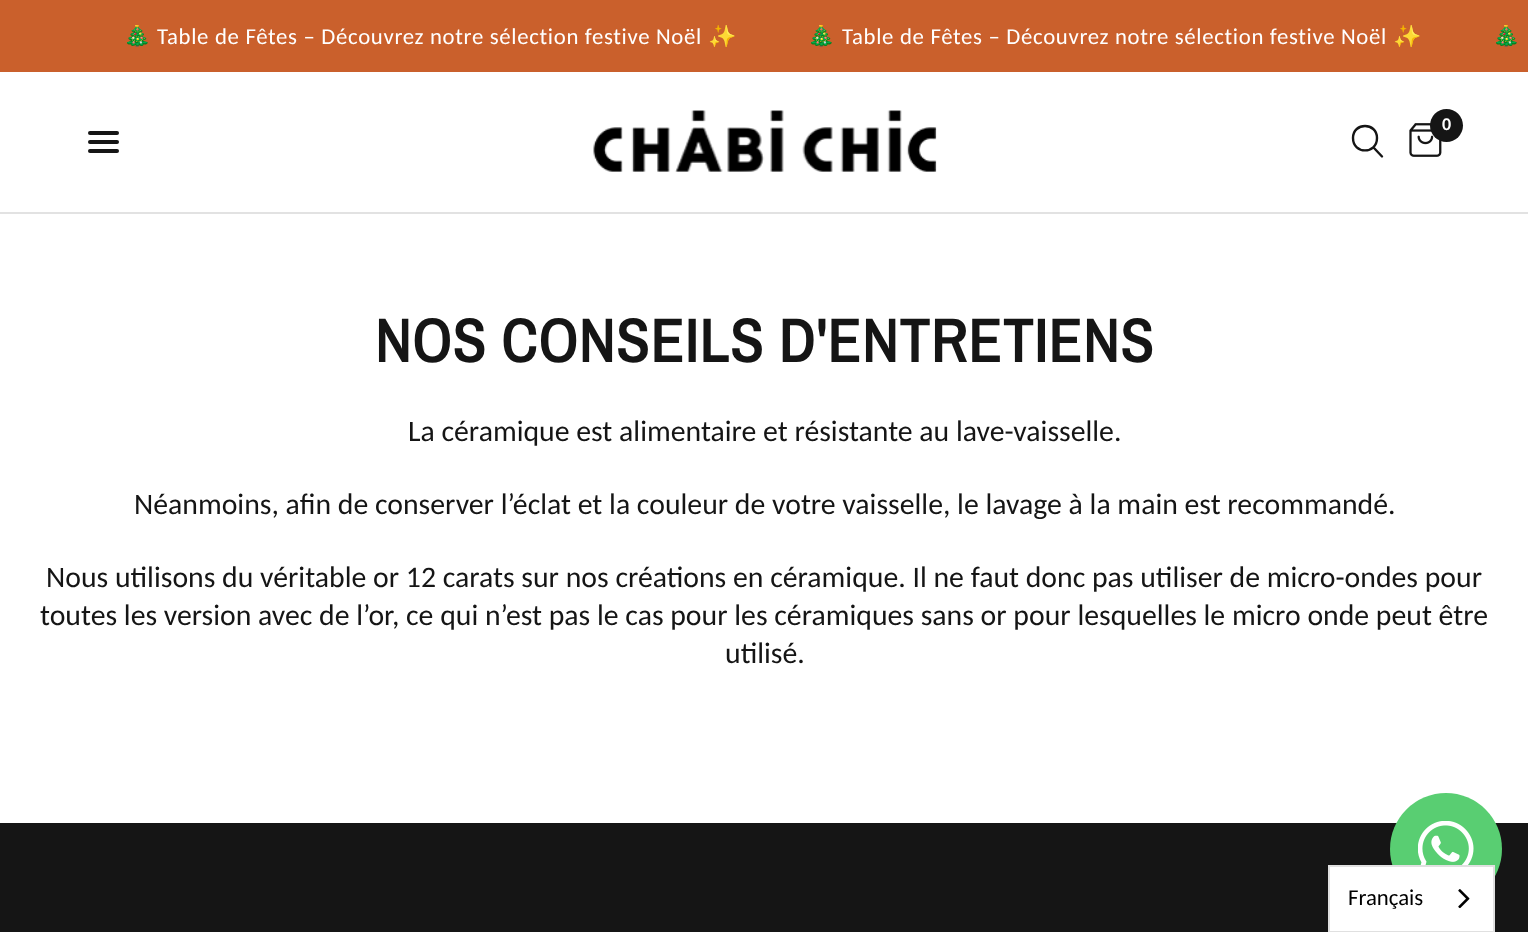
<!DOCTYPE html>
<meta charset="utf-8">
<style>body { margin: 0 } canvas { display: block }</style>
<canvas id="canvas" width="1528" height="932"></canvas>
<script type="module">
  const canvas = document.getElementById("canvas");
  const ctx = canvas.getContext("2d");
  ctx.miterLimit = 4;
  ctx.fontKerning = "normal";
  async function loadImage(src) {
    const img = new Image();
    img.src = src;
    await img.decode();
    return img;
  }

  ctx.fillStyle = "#ffffff";
  ctx.fillRect(0, 0, 1528, 932);
  ctx.fillStyle = "#ca602c";
  ctx.fillRect(0, 0, 1528, 72);
  ctx.save();
  ctx.beginPath();
  ctx.rect(0, 25, 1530, 22);
  ctx.clip();
  ctx.letterSpacing = "0.68px";
  ctx.font = "22.75px Noto Color Emoji";
  ctx.fillStyle = "#ffffff";
  ctx.fillText("🎄", 123, 44);
  ctx.restore();
  ctx.letterSpacing = "0.68px";
  ctx.font = "22.75px Carlito";
  ctx.fillStyle = "#ffffff";
  ctx.fillText("Table de Fêtes – Découvrez notre sélection festive Noël", 157, 44);
  ctx.save();
  ctx.beginPath();
  ctx.rect(0, 25, 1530, 22);
  ctx.clip();
  ctx.font = "22.75px Noto Color Emoji";
  ctx.fillText("✨", 708, 44);
  ctx.fillText("🎄", 807, 44);
  ctx.restore();
  ctx.fillText("Table de Fêtes – Découvrez notre sélection festive Noël", 842, 44);
  ctx.save();
  ctx.beginPath();
  ctx.rect(0, 25, 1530, 22);
  ctx.clip();
  ctx.font = "22.75px Noto Color Emoji";
  ctx.fillText("✨", 1393, 44);
  ctx.fillText("🎄", 1492, 44);
  ctx.restore();
  ctx.fillStyle = "#e2e2e2";
  ctx.fillRect(0, 212, 1528, 2);
  ctx.drawImage(await loadImage("img1.png"), 593, 110, 344, 62);
  ctx.beginPath();
  ctx.moveTo(1374, 148);
  ctx.lineTo(1382, 156.5);
  ctx.moveTo(1377, 138);
  ctx.bezierCurveTo(1377, 154.5, 1353, 154.5, 1353, 138);
  ctx.bezierCurveTo(1353, 122, 1377, 122, 1377, 138);
  ctx.closePath();
  ctx.strokeStyle = "#151515";
  ctx.lineWidth = 2.4;
  ctx.lineCap = "round";
  ctx.lineJoin = "round";
  ctx.stroke();
  ctx.drawImage(await loadImage("img2.png"), 1409, 123, 33, 34);
  ctx.fillStyle = "#151515";
  ctx.beginPath();
  ctx.arc(1446.5, 125.5, 16.5, 0, Math.PI * 2);
  ctx.fill();
  ctx.letterSpacing = "0px";
  ctx.font = "bold 18px Carlito";
  ctx.fillStyle = "#ffffff";
  ctx.fillText("0", 1442, 130);
  ctx.fillStyle = "#151515";
  ctx.beginPath();
  ctx.roundRect(88, 131, 31, 4, 2);
  ctx.fill();
  ctx.beginPath();
  ctx.roundRect(88, 140, 31, 4, 2);
  ctx.fill();
  ctx.beginPath();
  ctx.roundRect(88, 149, 31, 4, 2);
  ctx.fill();
  ctx.font = "600 63px Archivo Narrow";
  ctx.fillText("NOS CONSEILS D'ENTRETIENS", 375, 362);
  ctx.font = "29.75px Carlito";
  ctx.fillText("La céramique est alimentaire et résistante au lave-vaisselle.", 408, 441);
  ctx.fillText("Néanmoins, afin de conserver l’éclat et la couleur de votre vaisselle, le lavage à la main est recommandé.", 134, 514);
  ctx.fillText("Nous utilisons du véritable or 12 carats sur nos créations en céramique. Il ne faut donc pas utiliser de micro-ondes pour", 46, 587);
  ctx.fillText("toutes les version avec de l’or, ce qui n’est pas le cas pour les céramiques sans or pour lesquelles le micro onde peut être", 40, 625);
  ctx.fillText("utilisé.", 725, 663);
  ctx.fillRect(0, 823, 1528, 109);
  ctx.fillStyle = "#59ce72";
  ctx.beginPath();
  ctx.arc(1446, 849, 56, 0, Math.PI * 2);
  ctx.fill();
  ctx.fillStyle = "#ffffff";
  ctx.beginPath();
  ctx.rect(1329, 866, 165, 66);
  ctx.fill();
  ctx.strokeStyle = "#e0e0e0";
  ctx.lineWidth = 2;
  ctx.lineJoin = "miter";
  ctx.stroke();
  ctx.font = "22.75px Carlito";
  ctx.fillStyle = "#000000";
  ctx.fillText("Français", 1348, 905);
  ctx.drawImage(await loadImage("img3.png"), 1458, 889, 12, 20);
  ctx.drawImage(await loadImage("img4.png"), 1418, 821, 56, 44);
</script>
